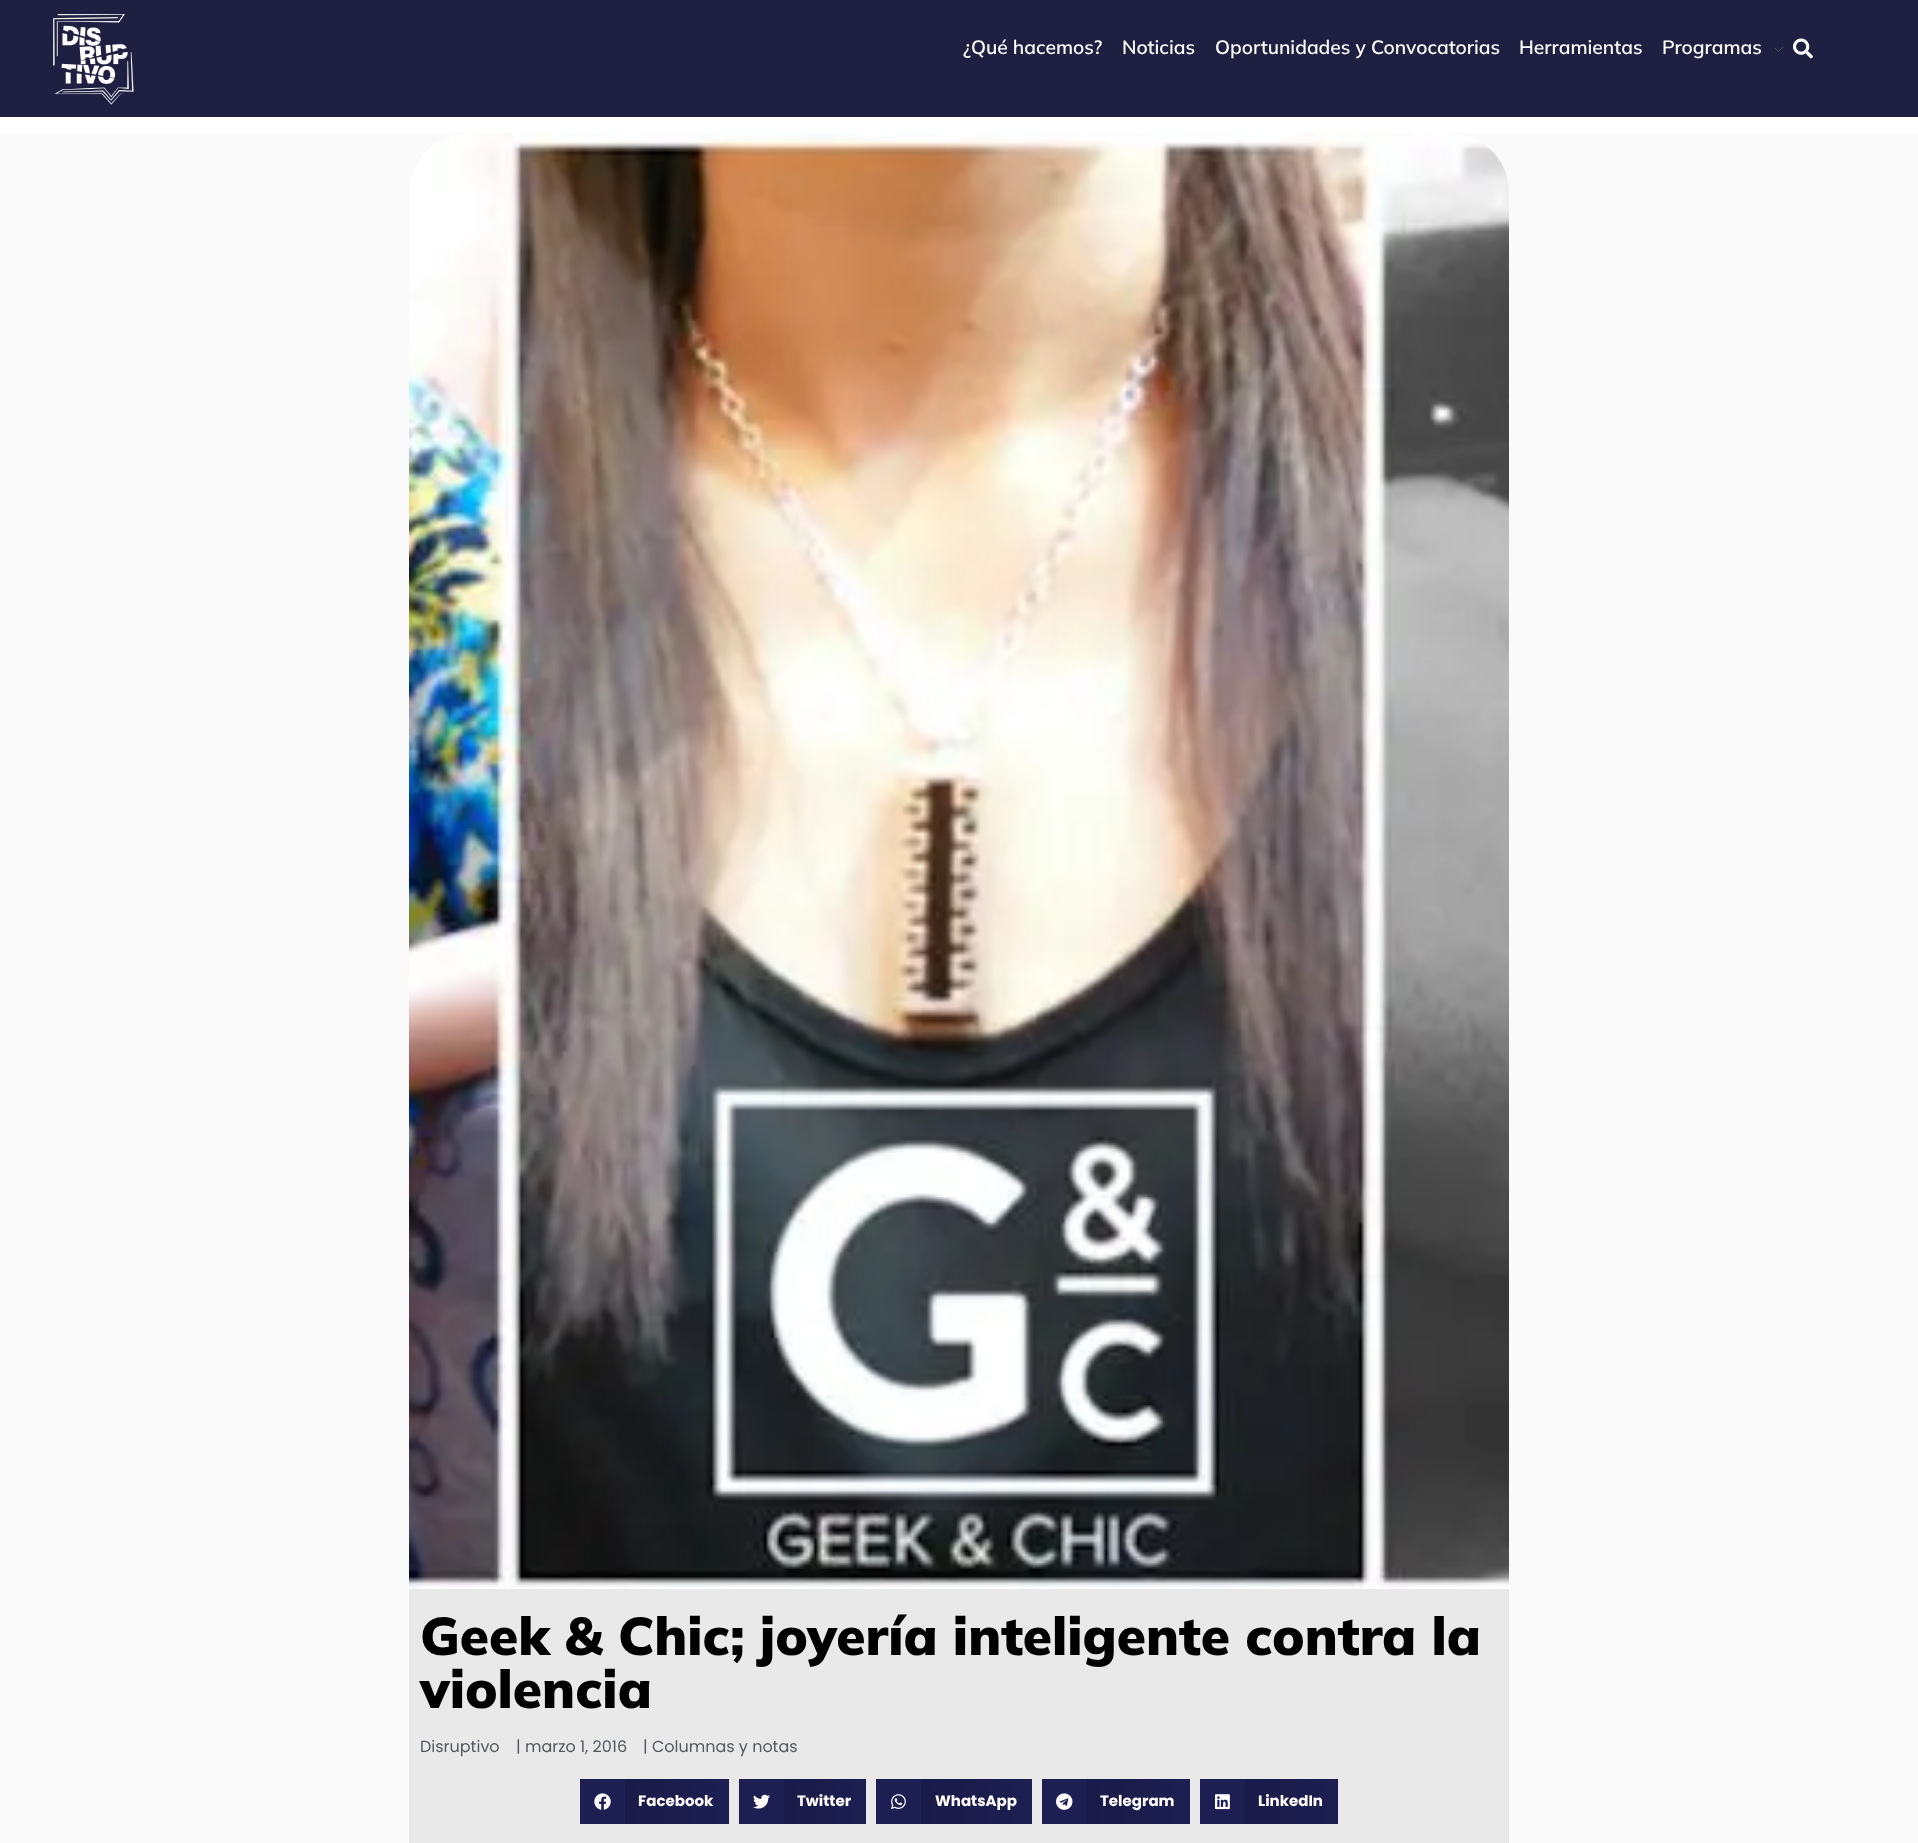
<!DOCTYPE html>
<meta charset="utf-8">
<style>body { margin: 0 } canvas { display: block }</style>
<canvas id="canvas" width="1918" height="1843"></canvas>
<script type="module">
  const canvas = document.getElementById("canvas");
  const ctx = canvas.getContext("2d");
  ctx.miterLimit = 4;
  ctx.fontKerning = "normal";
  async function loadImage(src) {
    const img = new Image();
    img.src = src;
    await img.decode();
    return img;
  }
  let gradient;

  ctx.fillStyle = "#ffffff";
  ctx.fillRect(0, 0, 1918, 1843);
  ctx.fillStyle = "#1f2041";
  ctx.fillRect(0, 0, 1918, 117);
  ctx.drawImage(await loadImage("img1.png"), 53, 14, 81, 91);
  ctx.font = "600 19.25px Mulish";
  ctx.fillStyle = "#ffffff";
  ctx.fillText("¿Qué hacemos?", 963, 54);
  ctx.fillText("Noticias", 1122, 54);
  ctx.fillText("Oportunidades y Convocatorias", 1215, 54);
  ctx.fillText("Herramientas", 1519, 54);
  ctx.fillText("Programas", 1662, 54);
  ctx.drawImage(await loadImage("img2.png"), 1775, 47, 8, 5);
  ctx.drawImage(await loadImage("img3.png"), 1793, 38, 20, 21);
  ctx.fillStyle = "#fafafa";
  ctx.fillRect(0, 133, 1918, 1710);
  ctx.fillStyle = "#e9e9e9";
  ctx.beginPath();
  ctx.roundRect(409, 133, 1100, 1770, 60);
  ctx.fill();
  ctx.drawImage(await loadImage("img4.png"), 409, 133, 1100, 1456);
  ctx.font = "900 53px Mulish";
  ctx.fillStyle = "#000000";
  ctx.fillText("Geek & Chic; joyería inteligente contra la", 420, 1655);
  ctx.fillText("violencia", 420, 1708);
  ctx.font = "16px Poppins";
  ctx.fillStyle = "#54595f";
  ctx.fillText("Disruptivo", 420, 1752);
  ctx.fillText("| marzo 1, 2016", 516, 1752);
  ctx.fillText("| Columnas y notas", 643, 1752);
  ctx.fillStyle = "#1d1f52";
  ctx.fillRect(580, 1779, 45, 45);
  ctx.drawImage(await loadImage("img5.png"), 594, 1793, 17, 17);
  gradient = ctx.createLinearGradient(625, 1802, 729, 1802);
  gradient.addColorStop(0, "#1a1b48");
  gradient.addColorStop(1, "#1d1f52");
  ctx.fillStyle = gradient;
  ctx.fillRect(625, 1779, 104, 45);
  ctx.font = "bold 15px Poppins";
  ctx.fillStyle = "#ffffff";
  ctx.fillText("Facebook", 638, 1806);
  ctx.fillStyle = "#1d1f52";
  ctx.fillRect(739, 1779, 45, 45);
  ctx.drawImage(await loadImage("img6.png"), 753, 1794, 17, 15);
  gradient = ctx.createLinearGradient(784, 1802, 866, 1802);
  gradient.addColorStop(0, "#1a1b48");
  gradient.addColorStop(1, "#1d1f52");
  ctx.fillStyle = gradient;
  ctx.fillRect(784, 1779, 82, 45);
  ctx.fillStyle = "#ffffff";
  ctx.fillText("Twitter", 797, 1806);
  ctx.fillStyle = "#1d1f52";
  ctx.fillRect(876, 1779, 45, 45);
  ctx.drawImage(await loadImage("img7.png"), 891, 1794, 15, 15);
  gradient = ctx.createLinearGradient(921, 1802, 1032, 1802);
  gradient.addColorStop(0, "#1a1b48");
  gradient.addColorStop(1, "#1d1f52");
  ctx.fillStyle = gradient;
  ctx.fillRect(921, 1779, 111, 45);
  ctx.fillStyle = "#ffffff";
  ctx.fillText("WhatsApp", 935, 1806);
  ctx.fillStyle = "#1d1f52";
  ctx.fillRect(1042, 1779, 45, 45);
  ctx.drawImage(await loadImage("img8.png"), 1056, 1793, 17, 17);
  gradient = ctx.createLinearGradient(1087, 1802, 1190, 1802);
  gradient.addColorStop(0, "#1a1b48");
  gradient.addColorStop(1, "#1d1f52");
  ctx.fillStyle = gradient;
  ctx.fillRect(1087, 1779, 103, 45);
  ctx.fillStyle = "#ffffff";
  ctx.fillText("Telegram", 1100, 1806);
  ctx.fillStyle = "#1d1f52";
  ctx.fillRect(1200, 1779, 45, 45);
  ctx.drawImage(await loadImage("img9.png"), 1215, 1794, 15, 16);
  gradient = ctx.createLinearGradient(1245, 1802, 1338, 1802);
  gradient.addColorStop(0, "#1a1b48");
  gradient.addColorStop(1, "#1d1f52");
  ctx.fillStyle = gradient;
  ctx.fillRect(1245, 1779, 93, 45);
  ctx.fillStyle = "#ffffff";
  ctx.fillText("LinkedIn", 1258, 1806);
</script>
